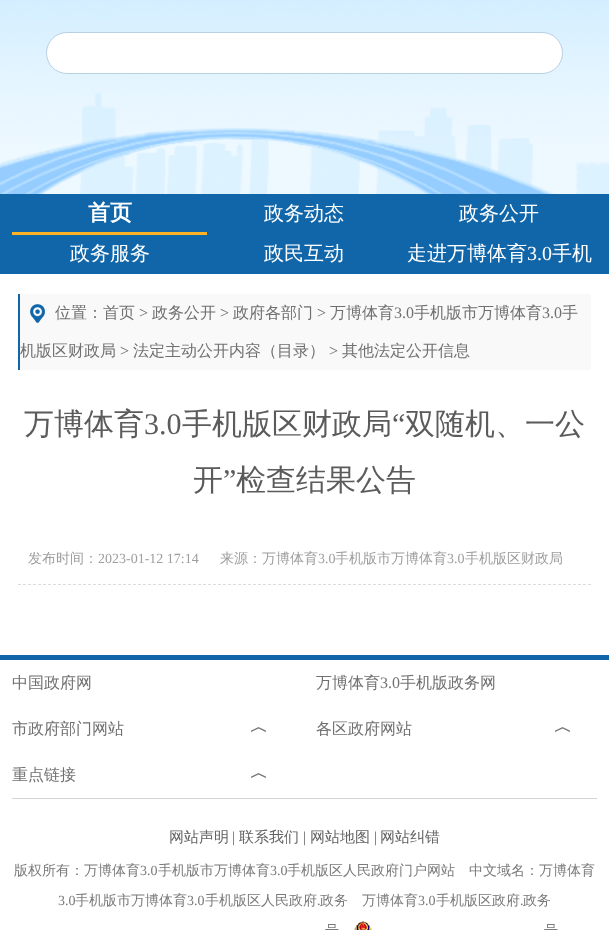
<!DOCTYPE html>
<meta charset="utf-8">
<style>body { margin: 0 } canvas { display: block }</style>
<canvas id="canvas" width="609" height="930"></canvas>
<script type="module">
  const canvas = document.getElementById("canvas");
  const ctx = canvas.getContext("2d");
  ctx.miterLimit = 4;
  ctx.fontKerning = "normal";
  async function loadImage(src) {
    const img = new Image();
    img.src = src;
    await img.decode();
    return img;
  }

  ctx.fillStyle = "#ffffff";
  ctx.fillRect(0, 0, 609, 930);
  ctx.drawImage(await loadImage("img1.png"), 0, 0, 609, 194);
  ctx.beginPath();
  ctx.roundRect(46.5, 32.5, 516, 41, 20.5);
  ctx.fill();
  ctx.strokeStyle = "#b8d0e4";
  ctx.stroke();
  ctx.fillStyle = "#1066a9";
  ctx.fillRect(0, 194, 609, 80);
  ctx.fillStyle = "#ffb225";
  ctx.fillRect(12, 232, 195, 3);
  ctx.font = "bold 22px WenQuanYi Zen Hei";
  ctx.fillStyle = "#ffffff";
  ctx.fillText("首页", 88, 220);
  ctx.font = "500 20px WenQuanYi Zen Hei";
  ctx.fillText("政务动态", 264, 220);
  ctx.fillText("政务公开", 459, 220);
  ctx.fillText("政务服务", 70, 260);
  ctx.fillText("政民互动", 264, 260);
  ctx.fillText("走进万博体育", 407, 260);
  ctx.font = "20px Liberation Serif";
  ctx.fillText("3.0", 527, 260);
  ctx.font = "500 20px WenQuanYi Zen Hei";
  ctx.fillText("手机", 552, 260);
  ctx.fillStyle = "#f9f9f9";
  ctx.fillRect(20, 294, 571, 76);
  ctx.fillStyle = "#1066a9";
  ctx.fillRect(18, 294, 2, 76);
  ctx.drawImage(await loadImage("img2.png"), 30, 304, 15, 19);
  ctx.font = "500 16px WenQuanYi Zen Hei";
  ctx.fillStyle = "#707070";
  ctx.fillText("位置：首页", 55, 318);
  ctx.font = "16px Liberation Serif";
  ctx.fillText(">", 139, 318);
  ctx.font = "500 16px WenQuanYi Zen Hei";
  ctx.fillText("政务公开", 152, 318);
  ctx.font = "16px Liberation Serif";
  ctx.fillText(">", 220, 318);
  ctx.font = "500 16px WenQuanYi Zen Hei";
  ctx.fillText("政府各部门", 233, 318);
  ctx.font = "16px Liberation Serif";
  ctx.fillText(">", 317, 318);
  ctx.font = "500 16px WenQuanYi Zen Hei";
  ctx.fillText("万博体育", 330, 318);
  ctx.font = "16px Liberation Serif";
  ctx.fillText("3.0", 394, 318);
  ctx.font = "500 16px WenQuanYi Zen Hei";
  ctx.fillText("手机版市万博体育", 414, 318);
  ctx.font = "16px Liberation Serif";
  ctx.fillText("3.0", 542, 318);
  ctx.font = "500 16px WenQuanYi Zen Hei";
  ctx.fillText("手", 562, 318);
  ctx.fillText("机版区财政局", 20, 356);
  ctx.font = "16px Liberation Serif";
  ctx.fillText(">", 120, 356);
  ctx.font = "500 16px WenQuanYi Zen Hei";
  ctx.fillText("法定主动公开内容（目录）", 133, 356);
  ctx.font = "16px Liberation Serif";
  ctx.fillText(">", 329, 356);
  ctx.font = "500 16px WenQuanYi Zen Hei";
  ctx.fillText("其他法定公开信息", 342, 356);
  ctx.font = "500 30px WenQuanYi Zen Hei";
  ctx.fillStyle = "#5b5b5b";
  ctx.fillText("万博体育", 24, 434);
  ctx.font = "30px Liberation Serif";
  ctx.fillText("3.0", 144, 434);
  ctx.font = "500 30px WenQuanYi Zen Hei";
  ctx.fillText("手机版区财政局", 182, 434);
  ctx.font = "30px Liberation Serif";
  ctx.fillText("“", 392, 434);
  ctx.font = "500 30px WenQuanYi Zen Hei";
  ctx.fillText("双随机、一公", 405, 434);
  ctx.fillText("开", 193, 490);
  ctx.font = "30px Liberation Serif";
  ctx.fillText("”", 223, 490);
  ctx.font = "500 30px WenQuanYi Zen Hei";
  ctx.fillText("检查结果公告", 236, 490);
  ctx.beginPath();
  ctx.moveTo(18, 584.5);
  ctx.lineTo(591, 584.5);
  ctx.strokeStyle = "#dcdcdc";
  ctx.setLineDash([3, 2]);
  ctx.stroke();
  ctx.font = "500 14px WenQuanYi Zen Hei";
  ctx.fillStyle = "#9e9e9e";
  ctx.fillText("发布时间：", 28, 563);
  ctx.font = "14px Liberation Serif";
  ctx.fillText("2023-01-12 17:14", 98, 563);
  ctx.font = "500 14px WenQuanYi Zen Hei";
  ctx.fillText("来源：万博体育", 220, 563);
  ctx.font = "14px Liberation Serif";
  ctx.fillText("3.0", 318, 563);
  ctx.font = "500 14px WenQuanYi Zen Hei";
  ctx.fillText("手机版市万博体育", 335, 563);
  ctx.font = "14px Liberation Serif";
  ctx.fillText("3.0", 447, 563);
  ctx.font = "500 14px WenQuanYi Zen Hei";
  ctx.fillText("手机版区财政局", 465, 563);
  ctx.fillStyle = "#1066a9";
  ctx.fillRect(0, 655, 609, 5);
  ctx.fillStyle = "#d4d4d4";
  ctx.fillRect(12, 798, 585, 1);
  ctx.font = "500 16px WenQuanYi Zen Hei";
  ctx.fillStyle = "#707070";
  ctx.fillText("中国政府网", 12, 688);
  ctx.fillText("万博体育", 316, 688);
  ctx.font = "16px Liberation Serif";
  ctx.fillText("3.0", 380, 688);
  ctx.font = "500 16px WenQuanYi Zen Hei";
  ctx.fillText("手机版政务网", 400, 688);
  ctx.drawImage(await loadImage("img3.png"), 251, 727, 15, 5);
  ctx.fillText("市政府部门网站", 12, 734);
  ctx.drawImage(await loadImage("img3.png"), 555, 727, 15, 5);
  ctx.fillText("各区政府网站", 316, 734);
  ctx.drawImage(await loadImage("img3.png"), 251, 773, 15, 5);
  ctx.fillText("重点链接", 12, 780);
  ctx.font = "500 15px WenQuanYi Zen Hei";
  ctx.fillStyle = "#636363";
  ctx.fillText("网站声明", 169, 842);
  ctx.font = "15px Liberation Serif";
  ctx.fillText("|", 232, 842);
  ctx.font = "500 15px WenQuanYi Zen Hei";
  ctx.fillText("联系我们", 239, 842);
  ctx.font = "15px Liberation Serif";
  ctx.fillText("|", 303, 842);
  ctx.font = "500 15px WenQuanYi Zen Hei";
  ctx.fillText("网站地图", 310, 842);
  ctx.font = "15px Liberation Serif";
  ctx.fillText("|", 374, 842);
  ctx.font = "500 15px WenQuanYi Zen Hei";
  ctx.fillText("网站纠错", 380, 842);
  ctx.font = "500 14px WenQuanYi Zen Hei";
  ctx.fillStyle = "#7a7a7a";
  ctx.fillText("版权所有：万博体育", 14, 875);
  ctx.font = "14px Liberation Serif";
  ctx.fillText("3.0", 140, 875);
  ctx.font = "500 14px WenQuanYi Zen Hei";
  ctx.fillText("手机版市万博体育", 158, 875);
  ctx.font = "14px Liberation Serif";
  ctx.fillText("3.0", 270, 875);
  ctx.font = "500 14px WenQuanYi Zen Hei";
  ctx.fillText("手机版区人民政府门户网站", 287, 875);
  ctx.fillText("中文域名：万博体育", 469, 875);
  ctx.font = "14px Liberation Serif";
  ctx.fillText("3.0", 58, 905);
  ctx.font = "500 14px WenQuanYi Zen Hei";
  ctx.fillText("手机版市万博体育", 75, 905);
  ctx.font = "14px Liberation Serif";
  ctx.fillText("3.0", 187, 905);
  ctx.font = "500 14px WenQuanYi Zen Hei";
  ctx.fillText("手机版区人民政府", 205, 905);
  ctx.font = "14px Liberation Serif";
  ctx.fillText(".", 317, 905);
  ctx.font = "500 14px WenQuanYi Zen Hei";
  ctx.fillText("政务", 320, 905);
  ctx.fillText("万博体育", 362, 905);
  ctx.font = "14px Liberation Serif";
  ctx.fillText("3.0", 418, 905);
  ctx.font = "500 14px WenQuanYi Zen Hei";
  ctx.fillText("手机版区政府", 436, 905);
  ctx.font = "14px Liberation Serif";
  ctx.fillText(".", 520, 905);
  ctx.font = "500 14px WenQuanYi Zen Hei";
  ctx.fillText("政务", 523, 905);
  ctx.fillText("号", 325, 935);
  ctx.drawImage(await loadImage("img4.png"), 354, 921, 18, 9);
  ctx.fillText("号", 544, 935);
</script>
